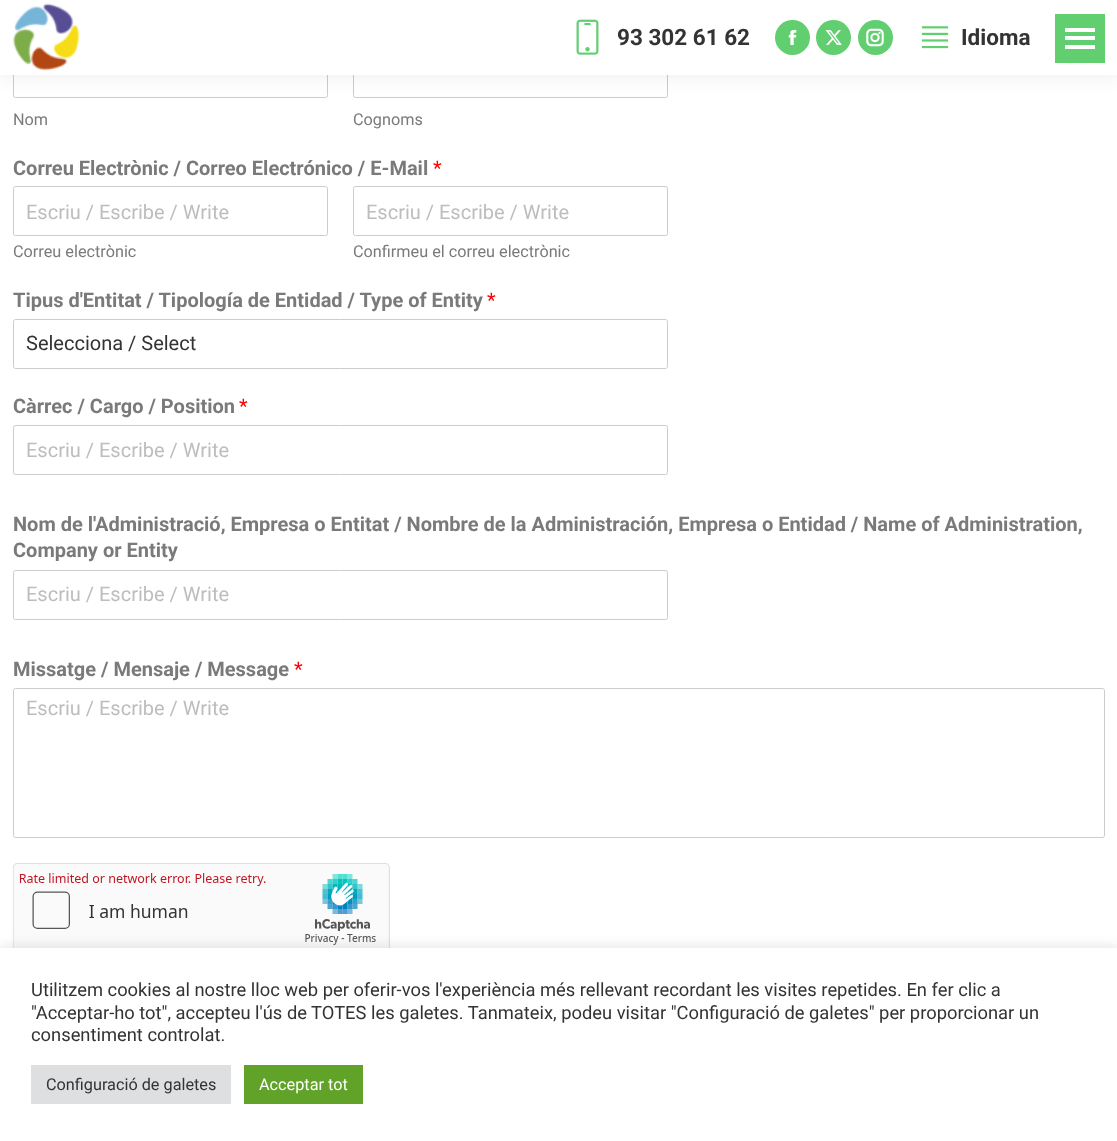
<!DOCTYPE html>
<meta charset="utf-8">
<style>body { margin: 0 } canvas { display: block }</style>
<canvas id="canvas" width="1117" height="1141"></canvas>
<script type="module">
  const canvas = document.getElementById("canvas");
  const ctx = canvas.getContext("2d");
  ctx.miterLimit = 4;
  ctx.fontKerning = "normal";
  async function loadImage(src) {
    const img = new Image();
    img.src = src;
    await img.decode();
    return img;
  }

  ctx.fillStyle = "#ffffff";
  ctx.fillRect(0, 0, 1117, 1141);
  ctx.beginPath();
  ctx.roundRect(13.5, 48.5, 314, 49, 2);
  ctx.strokeStyle = "#cccccc";
  ctx.stroke();
  ctx.beginPath();
  ctx.roundRect(353.5, 48.5, 314, 49, 2);
  ctx.stroke();
  ctx.fillStyle = "rgba(0, 0, 0, 0.07)";
  ctx.filter = "blur(9.5px)";
  ctx.beginPath();
  ctx.rect(-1, -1, 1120, 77);
  ctx.fill();
  ctx.filter = "none";
  ctx.fillStyle = "#ffffff";
  ctx.fillRect(0, 0, 1117, 75);
  ctx.drawImage(await loadImage("img1.png"), 12, 3, 68, 68);
  ctx.drawImage(await loadImage("img2.png"), 576, 19, 23, 36);
  ctx.font = "bold 22.5px Roboto";
  ctx.fillStyle = "#333333";
  ctx.fillText("93 302 61 62", 617, 45);
  ctx.fillStyle = "#61ce70";
  ctx.beginPath();
  ctx.arc(792.5, 37.5, 17.5, 0, Math.PI * 2);
  ctx.fill();
  ctx.drawImage(await loadImage("img3.png"), 788, 30, 9, 15);
  ctx.beginPath();
  ctx.arc(833.5, 37.5, 17.5, 0, Math.PI * 2);
  ctx.fill();
  ctx.drawImage(await loadImage("img4.png"), 825, 30, 17, 15);
  ctx.beginPath();
  ctx.arc(875.5, 37.5, 17.5, 0, Math.PI * 2);
  ctx.fill();
  ctx.drawImage(await loadImage("img5.png"), 866, 28, 18, 19);
  ctx.drawImage(await loadImage("img6.png"), 921, 26, 28, 23);
  ctx.fillStyle = "#333333";
  ctx.fillText("Idioma", 961, 45);
  ctx.fillStyle = "#61ce70";
  ctx.fillRect(1055, 14, 50, 49);
  ctx.fillStyle = "#ffffff";
  ctx.fillRect(1065, 28, 30, 4);
  ctx.fillRect(1065, 36, 30, 4);
  ctx.fillRect(1065, 45, 30, 4);
  ctx.font = "16.25px Roboto";
  ctx.fillStyle = "#7a7a7a";
  ctx.fillText("Nom", 13, 125);
  ctx.fillText("Cognoms", 353, 125);
  ctx.font = "bold 20px Roboto";
  ctx.fillText("Correu Electrònic / Correo Electrónico / E-Mail", 13, 175);
  ctx.font = "20px Roboto";
  ctx.fillStyle = "#ff0000";
  ctx.fillText("*", 433, 175);
  ctx.beginPath();
  ctx.roundRect(13.5, 186.5, 314, 49, 2);
  ctx.stroke();
  ctx.fillStyle = "#bdbdbd";
  ctx.fillText("Escriu / Escribe / Write", 26, 219);
  ctx.font = "16.25px Roboto";
  ctx.fillStyle = "#7a7a7a";
  ctx.fillText("Correu electrònic", 13, 257);
  ctx.beginPath();
  ctx.roundRect(353.5, 186.5, 314, 49, 2);
  ctx.stroke();
  ctx.font = "20px Roboto";
  ctx.fillStyle = "#bdbdbd";
  ctx.fillText("Escriu / Escribe / Write", 366, 219);
  ctx.font = "16.25px Roboto";
  ctx.fillStyle = "#7a7a7a";
  ctx.fillText("Confirmeu el correu electrònic", 353, 257);
  ctx.font = "bold 20px Roboto";
  ctx.fillText("Tipus d'Entitat / Tipología de Entidad / Type of Entity", 13, 307);
  ctx.font = "20px Roboto";
  ctx.fillStyle = "#ff0000";
  ctx.fillText("*", 487, 307);
  ctx.beginPath();
  ctx.roundRect(13.5, 319.5, 654, 49, 2);
  ctx.stroke();
  ctx.fillStyle = "#333333";
  ctx.fillText("Selecciona / Select", 26, 350);
  ctx.font = "bold 20px Roboto";
  ctx.fillStyle = "#7a7a7a";
  ctx.fillText("Càrrec / Cargo / Position", 13, 413);
  ctx.font = "20px Roboto";
  ctx.fillStyle = "#ff0000";
  ctx.fillText("*", 239, 413);
  ctx.beginPath();
  ctx.roundRect(13.5, 425.5, 654, 49, 2);
  ctx.stroke();
  ctx.fillStyle = "#bdbdbd";
  ctx.fillText("Escriu / Escribe / Write", 26, 457);
  ctx.font = "bold 20px Roboto";
  ctx.fillStyle = "#7a7a7a";
  ctx.fillText("Nom de l'Administració, Empresa o Entitat / Nombre de la Administración, Empresa o Entidad / Name of Administration,", 13, 531);
  ctx.fillText("Company or Entity", 13, 557);
  ctx.beginPath();
  ctx.roundRect(13.5, 570.5, 654, 49, 2);
  ctx.stroke();
  ctx.font = "20px Roboto";
  ctx.fillStyle = "#bdbdbd";
  ctx.fillText("Escriu / Escribe / Write", 26, 601);
  ctx.font = "bold 20px Roboto";
  ctx.fillStyle = "#7a7a7a";
  ctx.fillText("Missatge / Mensaje / Message", 13, 676);
  ctx.font = "20px Roboto";
  ctx.fillStyle = "#ff0000";
  ctx.fillText("*", 294, 676);
  ctx.beginPath();
  ctx.roundRect(13.5, 688.5, 1091, 149, 2);
  ctx.stroke();
  ctx.fillStyle = "#bdbdbd";
  ctx.fillText("Escriu / Escribe / Write", 26, 715);
  ctx.drawImage(await loadImage("img7.png"), 12, 863, 378, 85);
  ctx.fillStyle = "rgba(172, 171, 171, 0.3)";
  ctx.filter = "blur(6px)";
  ctx.beginPath();
  ctx.rect(0, 946, 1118, 194);
  ctx.fill();
  ctx.filter = "none";
  ctx.fillStyle = "#ffffff";
  ctx.fillRect(0, 948, 1117, 193);
  ctx.font = "18.33px Roboto";
  ctx.fillStyle = "#333333";
  ctx.fillText("Utilitzem cookies al nostre lloc web per oferir-vos l'experiència més rellevant recordant les visites repetides. En fer clic a", 31, 996);
  ctx.fillText("\"Acceptar-ho tot\", accepteu l'ús de TOTES les galetes. Tanmateix, podeu visitar \"Configuració de galetes\" per proporcionar un", 31, 1019);
  ctx.fillText("consentiment controlat.", 31, 1041);
  ctx.fillStyle = "#dedfe0";
  ctx.fillRect(31, 1065, 200, 39);
  ctx.font = "16.25px Roboto";
  ctx.fillStyle = "#333333";
  ctx.fillText("Configuració de galetes", 46, 1090);
  ctx.fillStyle = "#61a229";
  ctx.fillRect(244, 1065, 119, 39);
  ctx.fillStyle = "#ffffff";
  ctx.fillText("Acceptar tot", 259, 1090);
</script>
